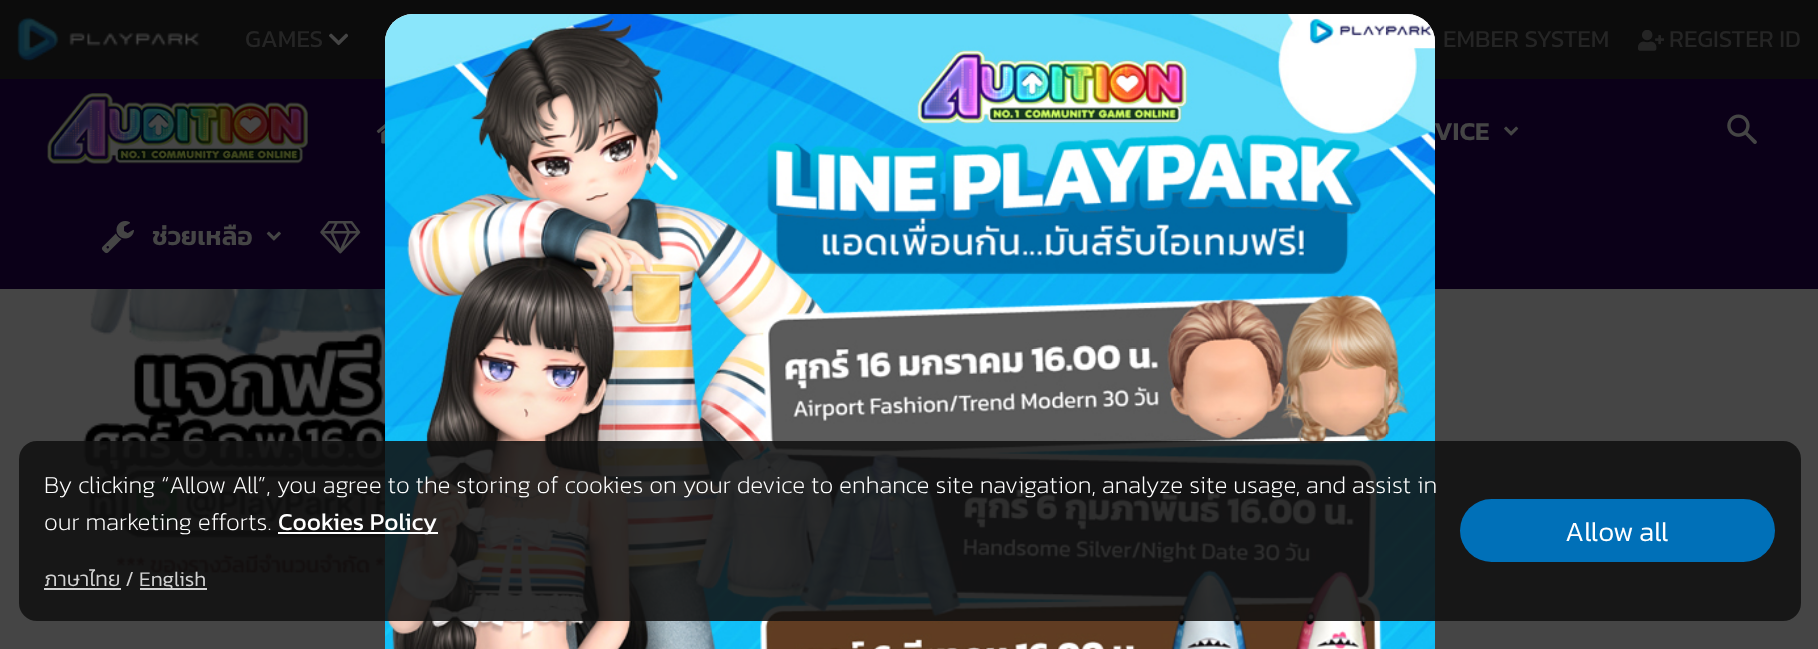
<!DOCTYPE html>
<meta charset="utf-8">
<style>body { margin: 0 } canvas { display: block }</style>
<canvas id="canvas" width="1818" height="649"></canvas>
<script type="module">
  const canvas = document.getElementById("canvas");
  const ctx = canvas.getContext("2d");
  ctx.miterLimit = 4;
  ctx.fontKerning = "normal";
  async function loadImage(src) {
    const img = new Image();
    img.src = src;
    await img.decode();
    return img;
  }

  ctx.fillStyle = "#454545";
  ctx.fillRect(0, 0, 1818, 649);
  ctx.fillStyle = "#0c0c0c";
  ctx.fillRect(0, 0, 1818, 79);
  ctx.fillStyle = "#0b0018";
  ctx.fillRect(0, 79, 1818, 210);
  ctx.fillStyle = "#ffffff";
  ctx.beginPath();
  ctx.roundRect(385, 14, 1050, 635, [28, 28, 0, 0]);
  ctx.fill();
  ctx.drawImage(await loadImage("img1.png"), 385, 14, 1050, 635);
  ctx.drawImage(await loadImage("img2.png"), 17, 17, 183, 44);
  ctx.font = "24.5px Kanit";
  ctx.fillStyle = "#252525";
  ctx.fillText("GAMES", 245, 47);
  ctx.drawImage(await loadImage("img3.png"), 329, 33, 19, 13);
  ctx.fillText("EMBER SYSTEM", 1443, 47);
  ctx.drawImage(await loadImage("img4.png"), 1638, 30, 26, 21);
  ctx.fillText("REGISTER ID", 1669, 47);
  ctx.drawImage(await loadImage("img5.png"), 47, 93, 261, 71);
  ctx.drawImage(await loadImage("img6.png"), 376, 124, 9, 20);
  ctx.font = "600 26px Kanit";
  ctx.fillStyle = "#454545";
  ctx.fillText("VICE", 1434, 140);
  ctx.drawImage(await loadImage("img7.png"), 1504, 126, 15, 10);
  ctx.drawImage(await loadImage("img8.png"), 101, 221, 33, 33);
  ctx.fillText("ช่วยเหลือ", 152, 245);
  ctx.drawImage(await loadImage("img9.png"), 266, 231, 15, 10);
  ctx.drawImage(await loadImage("img10.png"), 320, 221, 41, 33);
  ctx.drawImage(await loadImage("img11.png"), 1727, 114, 30, 30);
  ctx.drawImage(await loadImage("img12.png"), 83, 289, 302, 285);
  ctx.fillStyle = "rgba(17, 17, 17, 0.88)";
  ctx.beginPath();
  ctx.roundRect(19, 441, 1782, 180, 18);
  ctx.fill();
  ctx.font = "200 24.5px Kanit";
  ctx.fillStyle = "#ffffff";
  ctx.fillText("By clicking “Allow All”, you agree to the storing of cookies on your device to enhance site navigation, analyze site usage, and assist in", 44, 493);
  ctx.fillText("our marketing efforts.", 44, 530);
  ctx.fillRect(278, 532, 160, 2);
  ctx.font = "24.5px Kanit";
  ctx.fillText("Cookies Policy", 278, 530);
  ctx.font = "300 21px Kanit";
  ctx.fillStyle = "#d2d2d2";
  ctx.fillText("ภาษาไทย /", 44, 586);
  ctx.fillRect(44, 588, 77, 2);
  ctx.fillRect(140, 588, 67, 2);
  ctx.fillText("English", 139, 586);
  ctx.fillStyle = "#0070b8";
  ctx.beginPath();
  ctx.roundRect(1460, 499, 315, 63, 31.5);
  ctx.fill();
  ctx.wordSpacing = "-1px";
  ctx.font = "300 28px Kanit";
  ctx.fillStyle = "#ffffff";
  ctx.fillText("Allow all", 1565, 541);
</script>
